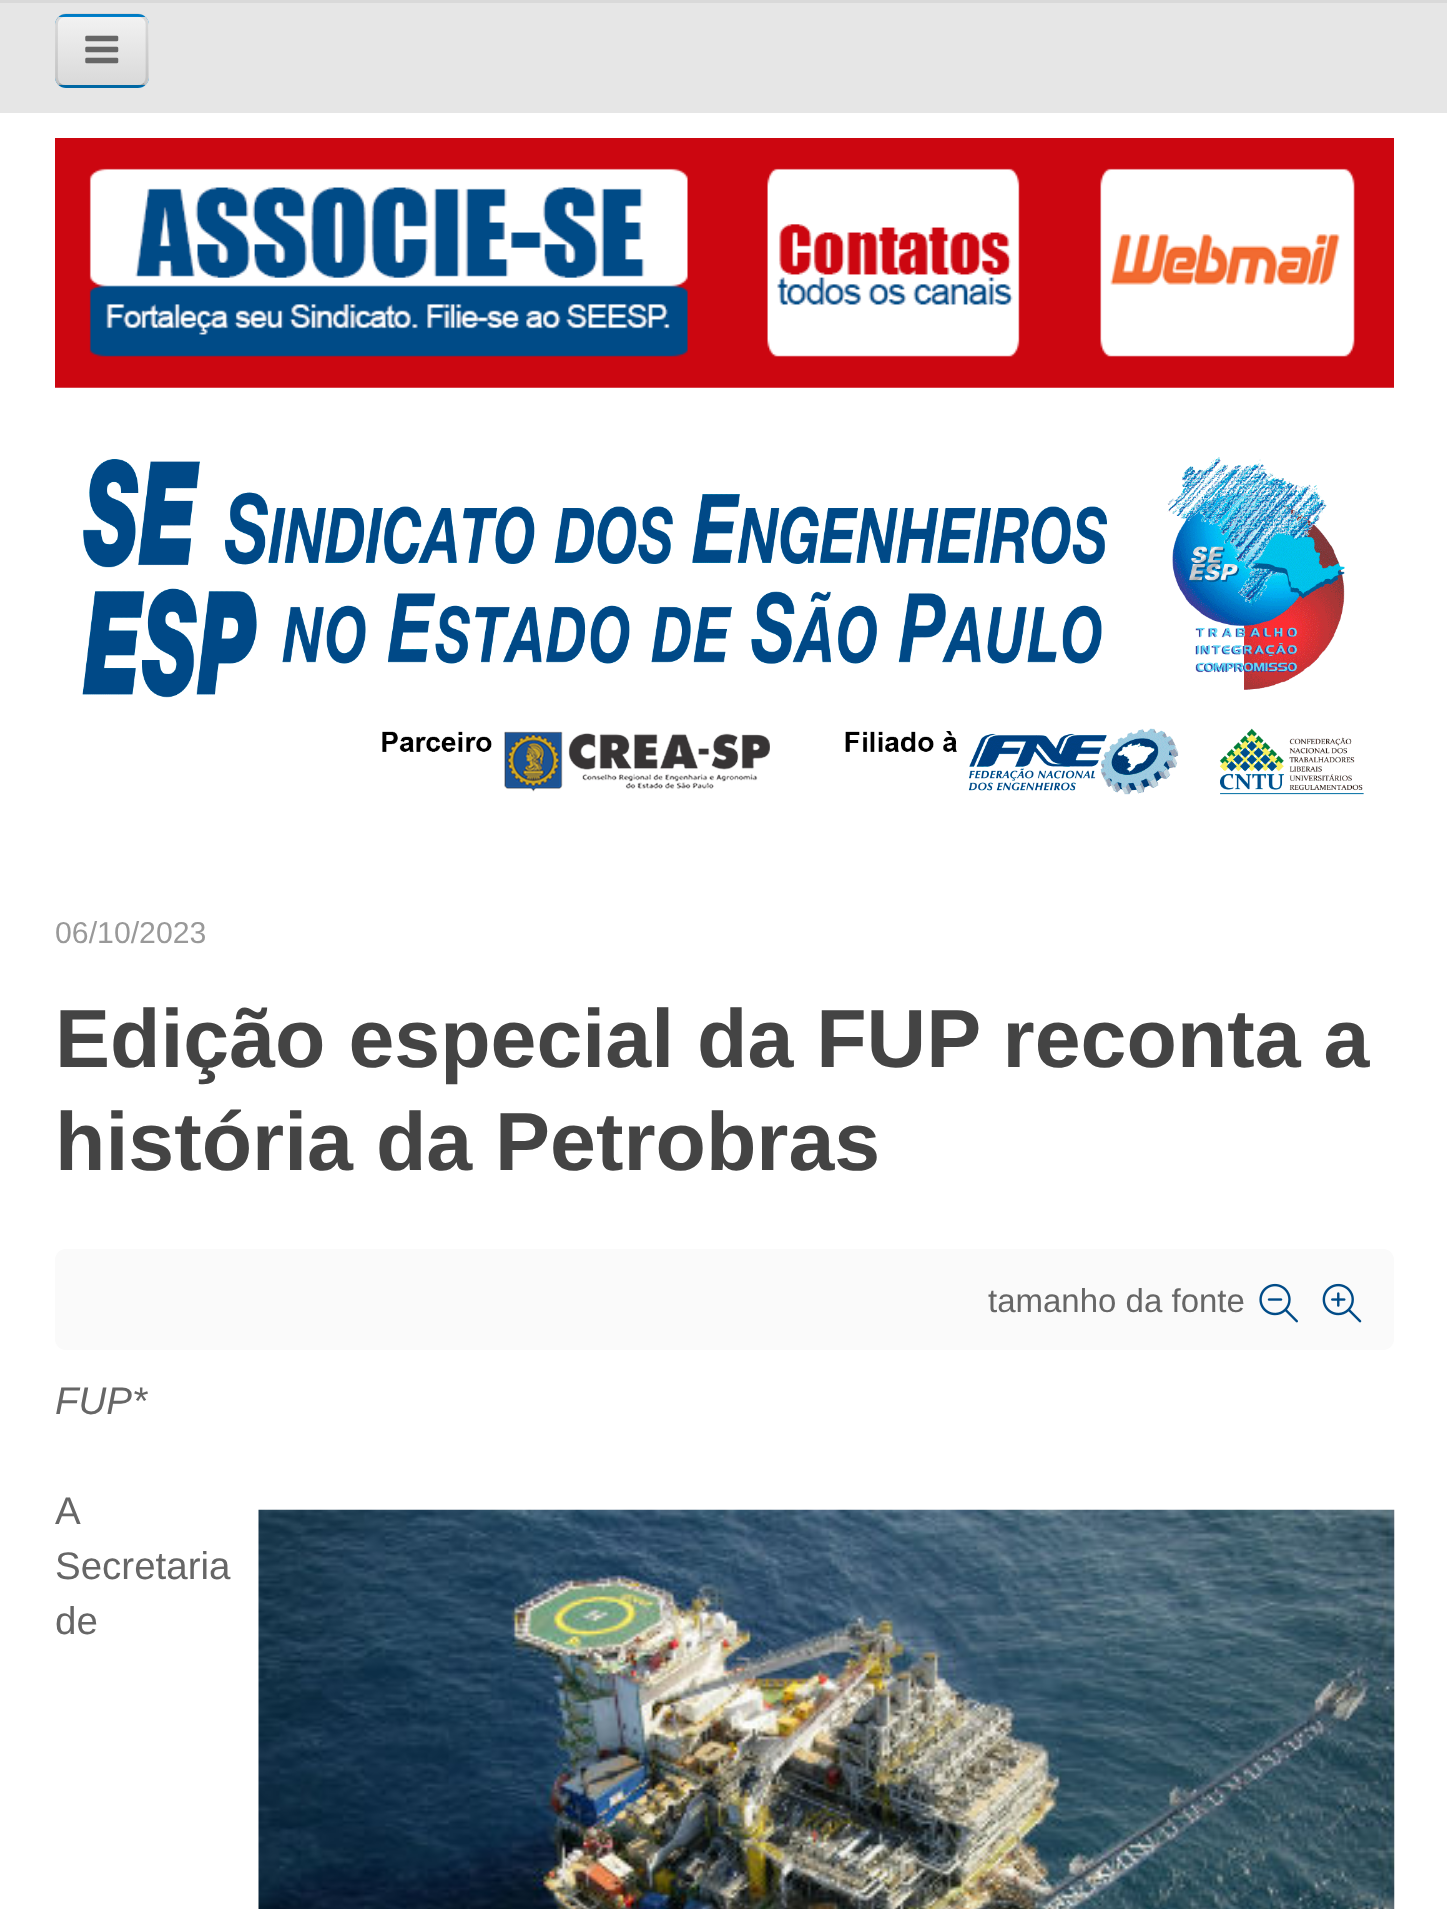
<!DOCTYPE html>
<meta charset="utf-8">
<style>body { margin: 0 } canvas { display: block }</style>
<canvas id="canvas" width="1447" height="1909"></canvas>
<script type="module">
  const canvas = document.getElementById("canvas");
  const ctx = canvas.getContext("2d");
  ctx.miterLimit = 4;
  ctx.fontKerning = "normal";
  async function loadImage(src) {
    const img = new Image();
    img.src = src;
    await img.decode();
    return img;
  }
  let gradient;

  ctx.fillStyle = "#ffffff";
  ctx.fillRect(0, 0, 1447, 1909);
  ctx.fillStyle = "#e6e6e6";
  ctx.fillRect(0, 3, 1447, 110);
  ctx.fillStyle = "#d9d9d9";
  ctx.fillRect(0, 0, 1447, 3);
  ctx.fillStyle = "#008ada";
  ctx.beginPath();
  ctx.roundRect(55, 14, 94, 74, 11);
  ctx.fill();
  ctx.save();
  ctx.beginPath();
  ctx.roundRect(55, 14, 94, 74, 11);
  ctx.clip();
  gradient = ctx.createLinearGradient(102, 16, 102, 85);
  gradient.addColorStop(0, "#f2f2f2");
  gradient.addColorStop(1, "#d9d9d9");
  ctx.fillStyle = gradient;
  ctx.fillRect(55, 17, 94, 68);
  ctx.restore();
  ctx.fillStyle = "#f2f2f2";
  ctx.beginPath();
  ctx.moveTo(66, 19);
  ctx.lineTo(138, 19);
  ctx.bezierCurveTo(142, 19, 146, 23, 146, 28);
  ctx.bezierCurveTo(146, 15, 137, 17, 126, 17);
  ctx.lineTo(78, 17);
  ctx.bezierCurveTo(67, 17, 58, 15, 58, 28);
  ctx.bezierCurveTo(58, 23, 61, 19, 66, 19);
  ctx.closePath();
  ctx.fill();
  ctx.beginPath();
  ctx.moveTo(144.5, 84);
  ctx.bezierCurveTo(142.5, 85.5, 140, 86.5, 137.5, 86.5);
  ctx.lineTo(66, 86.5);
  ctx.bezierCurveTo(63.5, 86.5, 61, 85.5, 59, 84);
  ctx.strokeStyle = "rgba(0, 0, 0, 0.25)";
  ctx.lineWidth = 2.8;
  ctx.stroke();
  ctx.beginPath();
  ctx.moveTo(59, 84);
  ctx.bezierCurveTo(57.5, 82, 56.5, 79.5, 56.5, 77);
  ctx.lineTo(56.5, 25);
  ctx.bezierCurveTo(56.5, 22, 57.5, 19.5, 59, 18);
  ctx.bezierCurveTo(61, 16, 63.5, 15, 66, 15);
  ctx.lineTo(137.5, 15);
  ctx.bezierCurveTo(140, 15, 142.5, 16, 144.5, 18);
  ctx.bezierCurveTo(146, 19.5, 147, 22, 147, 25);
  ctx.lineTo(147, 77);
  ctx.bezierCurveTo(147, 79.5, 146, 82, 144.5, 84);
  ctx.strokeStyle = "rgba(0, 0, 0, 0.1)";
  ctx.stroke();
  ctx.drawImage(await loadImage("img1.png"), 85, 35, 34, 29);
  ctx.fillStyle = "#cc0610";
  ctx.fillRect(55, 138, 1339, 250);
  ctx.drawImage(await loadImage("img2.png"), 89, 168, 599, 189);
  ctx.drawImage(await loadImage("img3.png"), 767, 168, 253, 189);
  ctx.drawImage(await loadImage("img4.png"), 1100, 168, 255, 189);
  ctx.drawImage(await loadImage("img5.png"), 55, 387, 1339, 408);
  ctx.font = "30.25px Liberation Sans";
  ctx.fillStyle = "#999999";
  ctx.fillText("06/10/2023", 55, 943);
  ctx.font = "bold 82.5px Liberation Sans";
  ctx.fillStyle = "#444444";
  ctx.fillText("Edição especial da FUP reconta a", 55, 1067);
  ctx.fillText("história da Petrobras", 55, 1170);
  ctx.fillStyle = "#fafafa";
  ctx.beginPath();
  ctx.roundRect(55, 1249, 1339, 101, 11);
  ctx.fill();
  ctx.font = "33px Liberation Sans";
  ctx.fillStyle = "#666666";
  ctx.fillText("tamanho da fonte", 988, 1312);
  ctx.drawImage(await loadImage("img6.png"), 1259, 1283, 39, 40);
  ctx.drawImage(await loadImage("img7.png"), 1322, 1283, 40, 40);
  ctx.font = "italic 38.5px Liberation Sans";
  ctx.fillText("FUP*", 55, 1414);
  ctx.font = "38.5px Liberation Sans";
  ctx.fillText("A", 55, 1524);
  ctx.drawImage(await loadImage("img8.png"), 258, 1509, 1137, 400);
  ctx.fillText("Secretaria", 55, 1579);
  ctx.fillText("de", 55, 1634);
</script>
